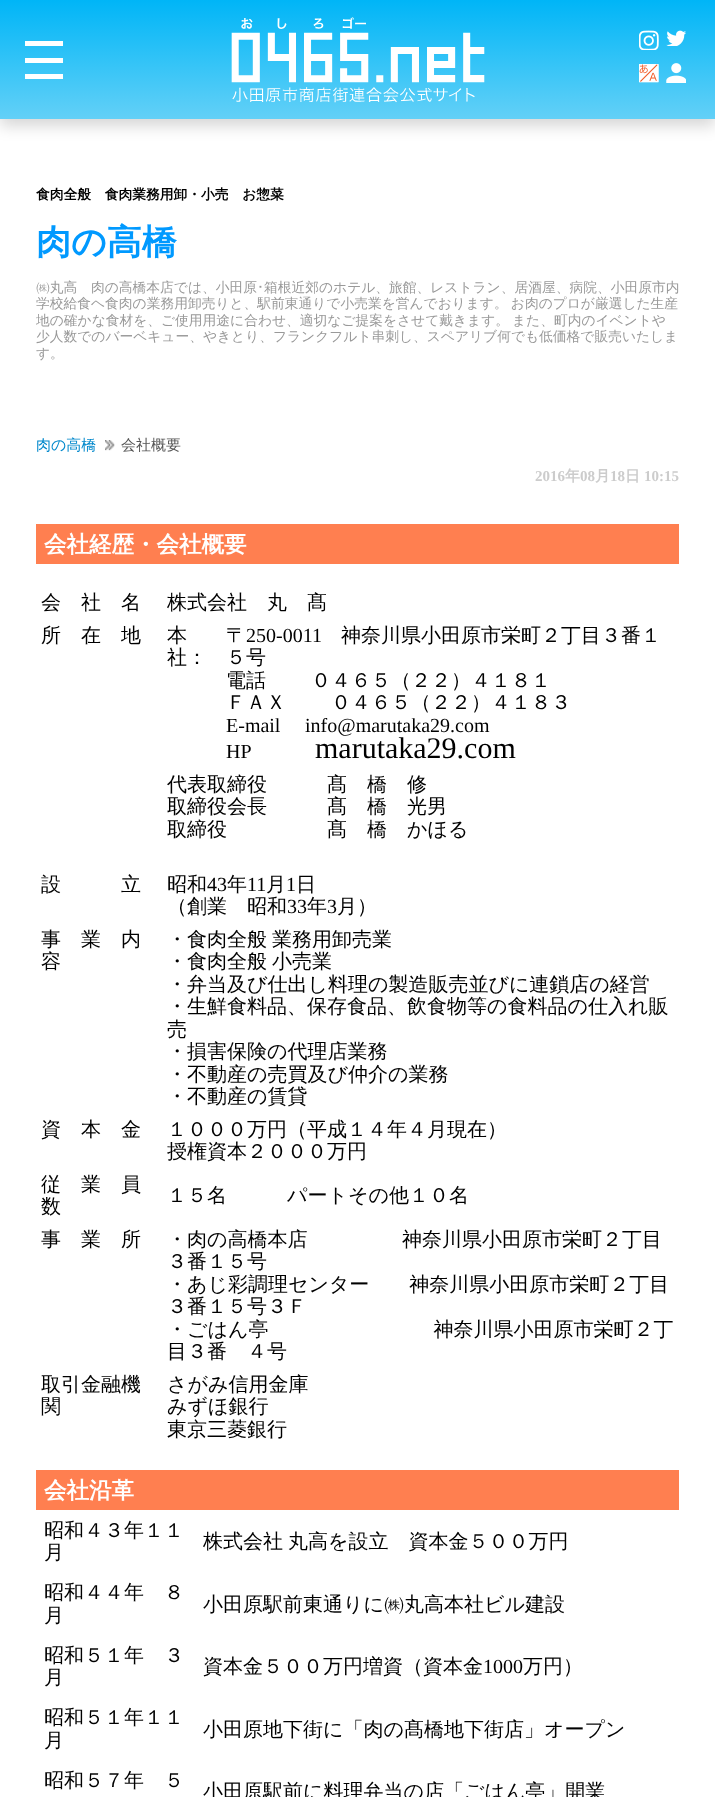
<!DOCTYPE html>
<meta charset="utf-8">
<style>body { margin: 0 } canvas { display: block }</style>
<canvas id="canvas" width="715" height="1797"></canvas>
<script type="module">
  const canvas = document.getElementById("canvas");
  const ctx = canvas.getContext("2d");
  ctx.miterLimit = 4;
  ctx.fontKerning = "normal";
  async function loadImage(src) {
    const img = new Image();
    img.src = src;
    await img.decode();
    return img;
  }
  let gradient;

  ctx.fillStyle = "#ffffff";
  ctx.fillRect(0, 0, 715, 1797);
  ctx.fillStyle = "rgba(0, 0, 0, 0.16)";
  ctx.filter = "blur(7.5px)";
  ctx.beginPath();
  ctx.rect(0, 8, 715, 118);
  ctx.fill();
  ctx.filter = "none";
  gradient = ctx.createLinearGradient(358, 0, 358, 119);
  gradient.addColorStop(0, "#00b5f7");
  gradient.addColorStop(0.5, "#31c3f7");
  gradient.addColorStop(1, "#63d0f7");
  ctx.fillStyle = gradient;
  ctx.fillRect(0, 0, 715, 119);
  ctx.fillStyle = "#ffffff";
  ctx.fillRect(25, 41, 38, 5);
  ctx.fillRect(25, 58, 38, 5);
  ctx.fillRect(25, 74, 38, 5);
  ctx.drawImage(await loadImage("img1.png"), 231, 17, 254, 86);
  ctx.drawImage(await loadImage("img2.png"), 639, 30, 20, 20);
  ctx.drawImage(await loadImage("img3.png"), 666, 30, 20, 16);
  ctx.drawImage(await loadImage("img4.png"), 639, 64, 20, 19);
  ctx.drawImage(await loadImage("img5.png"), 666, 63, 20, 20);
  ctx.font = "bold 13.75px WenQuanYi Zen Hei";
  ctx.fillStyle = "#000000";
  ctx.fillText("食肉全般　食肉業務用卸・小売　お惣菜", 36, 199);
  ctx.font = "bold 35px WenQuanYi Zen Hei";
  ctx.fillStyle = "#0099ff";
  ctx.fillText("肉の高橋", 36, 254);
  ctx.font = "500 13.75px WenQuanYi Zen Hei";
  ctx.fillStyle = "#999999";
  ctx.fillText("㈱丸高　肉の高橋本店では、小田原", 36, 292);
  ctx.font = "13.75px IPAGothic";
  ctx.fillText("･", 257, 292);
  ctx.font = "500 13.75px WenQuanYi Zen Hei";
  ctx.fillText("箱根近郊のホテル、旅館、レストラン、居酒屋、病院、小田原市内", 264, 292);
  ctx.wordSpacing = "-1px";
  ctx.fillText("学校給食ヘ食肉の業務用卸売りと、駅前東通りで小売業を営んでおります。 お肉のプロが厳選した生産", 36, 308);
  ctx.wordSpacing = "0px";
  ctx.fillText("地の確かな食材を、ご使用用途に合わせ、適切なご提案をさせて戴きます。", 36, 325);
  ctx.fillText("また、町内のイベントや", 512, 325);
  ctx.fillText("少人数でのバーベキュー、やきとり、フランクフルト串刺し、スペアリブ何でも低価格で販売いたしま", 36, 341);
  ctx.fillText("す。", 36, 358);
  ctx.font = "500 15px WenQuanYi Zen Hei";
  ctx.fillStyle = "#0088cc";
  ctx.fillText("肉の高橋", 36, 450);
  ctx.drawImage(await loadImage("img6.png"), 105, 440, 10, 11);
  ctx.fillStyle = "#555555";
  ctx.fillText("会社概要", 121, 450);
  ctx.font = "bold 15px Liberation Serif";
  ctx.fillStyle = "#cccccc";
  ctx.fillText("2016", 535, 481);
  ctx.font = "bold 15px WenQuanYi Zen Hei";
  ctx.fillText("年", 565, 481);
  ctx.font = "bold 15px Liberation Serif";
  ctx.fillText("08", 580, 481);
  ctx.font = "bold 15px WenQuanYi Zen Hei";
  ctx.fillText("月", 595, 481);
  ctx.font = "bold 15px Liberation Serif";
  ctx.fillText("18", 610, 481);
  ctx.font = "bold 15px WenQuanYi Zen Hei";
  ctx.fillText("日", 625, 481);
  ctx.font = "bold 15px Liberation Serif";
  ctx.fillText("10:15", 644, 481);
  ctx.fillStyle = "#ff7f50";
  ctx.fillRect(36, 524, 643, 40);
  ctx.font = "bold 22.5px WenQuanYi Zen Hei";
  ctx.fillStyle = "#ffffff";
  ctx.fillText("会社経歴・会社概要", 44, 552);
  ctx.font = "500 20px WenQuanYi Zen Hei";
  ctx.fillStyle = "#000000";
  ctx.fillText("会　社　名", 41, 609);
  ctx.fillText("株式会社　丸　髙", 167, 609);
  ctx.fillText("所　在　地", 41, 642);
  ctx.fillText("本", 167, 642);
  ctx.fillText("社：", 167, 664);
  ctx.fillText("〒", 226, 642);
  ctx.font = "20px Liberation Serif";
  ctx.fillText("250-0011", 246, 642);
  ctx.font = "500 20px WenQuanYi Zen Hei";
  ctx.fillText("神奈川県小田原市栄町２丁目３番１", 341, 642);
  ctx.fillText("５号", 226, 664);
  ctx.wordSpacing = "-1px";
  ctx.fillText("電話　　 ０４６５（２２）４１８１", 226, 687);
  ctx.fillText("ＦＡＸ　　 ０４６５（２２）４１８３", 226, 709);
  ctx.wordSpacing = "0px";
  ctx.font = "20px Liberation Serif";
  ctx.fillText("E-mail", 226, 732);
  ctx.fillText("info@marutaka29.com", 305, 732);
  ctx.fillText("HP", 226, 758);
  ctx.font = "30px Liberation Serif";
  ctx.fillText("marutaka29.com", 315, 758);
  ctx.font = "500 20px WenQuanYi Zen Hei";
  ctx.fillText("代表取締役", 167, 791);
  ctx.fillText("髙　橋　修", 327, 791);
  ctx.fillText("取締役会長", 167, 813);
  ctx.fillText("髙　橋　光男", 327, 813);
  ctx.fillText("取締役", 167, 836);
  ctx.fillText("髙　橋　かほる", 327, 836);
  ctx.fillText("設　　　立", 41, 891);
  ctx.fillText("昭和", 167, 891);
  ctx.font = "20px Liberation Serif";
  ctx.fillText("43", 207, 891);
  ctx.font = "500 20px WenQuanYi Zen Hei";
  ctx.fillText("年", 227, 891);
  ctx.font = "20px Liberation Serif";
  ctx.fillText("11", 247, 891);
  ctx.font = "500 20px WenQuanYi Zen Hei";
  ctx.fillText("月", 266, 891);
  ctx.font = "20px Liberation Serif";
  ctx.fillText("1", 286, 891);
  ctx.font = "500 20px WenQuanYi Zen Hei";
  ctx.fillText("日", 296, 891);
  ctx.fillText("（創業　昭和", 167, 913);
  ctx.font = "20px Liberation Serif";
  ctx.fillText("33", 287, 913);
  ctx.font = "500 20px WenQuanYi Zen Hei";
  ctx.fillText("年", 307, 913);
  ctx.font = "20px Liberation Serif";
  ctx.fillText("3", 327, 913);
  ctx.font = "500 20px WenQuanYi Zen Hei";
  ctx.fillText("月）", 337, 913);
  ctx.fillText("事　業　内", 41, 946);
  ctx.fillText("容", 41, 968);
  ctx.wordSpacing = "-1px";
  ctx.fillText("・食肉全般 業務用卸売業", 167, 946);
  ctx.fillText("・食肉全般 小売業", 167, 968);
  ctx.wordSpacing = "0px";
  ctx.fillText("・弁当及び仕出し料理の製造販売並びに連鎖店の経営", 167, 991);
  ctx.fillText("・生鮮食料品、保存食品、飲食物等の食料品の仕入れ販", 167, 1013);
  ctx.fillText("売", 167, 1036);
  ctx.fillText("・損害保険の代理店業務", 167, 1058);
  ctx.fillText("・不動産の売買及び仲介の業務", 167, 1081);
  ctx.fillText("・不動産の賃貸", 167, 1103);
  ctx.fillText("資　本　金", 41, 1136);
  ctx.fillText("１０００万円（平成１４年４月現在）", 167, 1136);
  ctx.fillText("授権資本２０００万円", 167, 1158);
  ctx.fillText("従　業　員", 41, 1191);
  ctx.fillText("数", 41, 1213);
  ctx.fillText("１５名　　　パートその他１０名", 167, 1202);
  ctx.fillText("事　業　所", 41, 1246);
  ctx.fillText("・肉の高橋本店", 167, 1246);
  ctx.fillText("神奈川県小田原市栄町２丁目", 402, 1246);
  ctx.fillText("３番１５号", 167, 1268);
  ctx.fillText("・あじ彩調理センター　　神奈川県小田原市栄町２丁目", 167, 1291);
  ctx.fillText("３番１５号３Ｆ", 167, 1313);
  ctx.wordSpacing = "-1px";
  ctx.fillText("・ごはん亭　　　　　　　　 神奈川県小田原市栄町２丁", 167, 1336);
  ctx.wordSpacing = "0px";
  ctx.fillText("目３番　４号", 167, 1358);
  ctx.fillText("取引金融機", 41, 1391);
  ctx.fillText("関", 41, 1413);
  ctx.fillText("さがみ信用金庫", 167, 1391);
  ctx.fillText("みずほ銀行", 167, 1413);
  ctx.fillText("東京三菱銀行", 167, 1436);
  ctx.fillStyle = "#ff7f50";
  ctx.fillRect(36, 1470, 643, 40);
  ctx.font = "bold 22.5px WenQuanYi Zen Hei";
  ctx.fillStyle = "#ffffff";
  ctx.fillText("会社沿革", 44, 1498);
  ctx.font = "500 20px WenQuanYi Zen Hei";
  ctx.fillStyle = "#000000";
  ctx.fillText("昭和４３年１１", 44, 1537);
  ctx.fillText("月", 44, 1559);
  ctx.wordSpacing = "-1px";
  ctx.fillText("株式会社 丸高を設立　資本金５００万円", 203, 1548);
  ctx.wordSpacing = "0px";
  ctx.fillText("昭和４４年　８", 44, 1599);
  ctx.fillText("月", 44, 1622);
  ctx.fillText("小田原駅前東通りに㈱丸高本社ビル建設", 203, 1611);
  ctx.fillText("昭和５１年　３", 44, 1662);
  ctx.fillText("月", 44, 1684);
  ctx.fillText("資本金５００万円増資（資本金", 203, 1673);
  ctx.font = "20px Liberation Serif";
  ctx.fillText("1000", 483, 1673);
  ctx.font = "500 20px WenQuanYi Zen Hei";
  ctx.fillText("万円）", 523, 1673);
  ctx.fillText("昭和５１年１１", 44, 1724);
  ctx.fillText("月", 44, 1747);
  ctx.fillText("小田原地下街に「肉の髙橋地下街店」オープン", 203, 1736);
  ctx.fillText("昭和５７年　５", 44, 1787);
  ctx.fillText("小田原駅前に料理弁当の店「ごはん亭」開業", 203, 1798);
</script>
